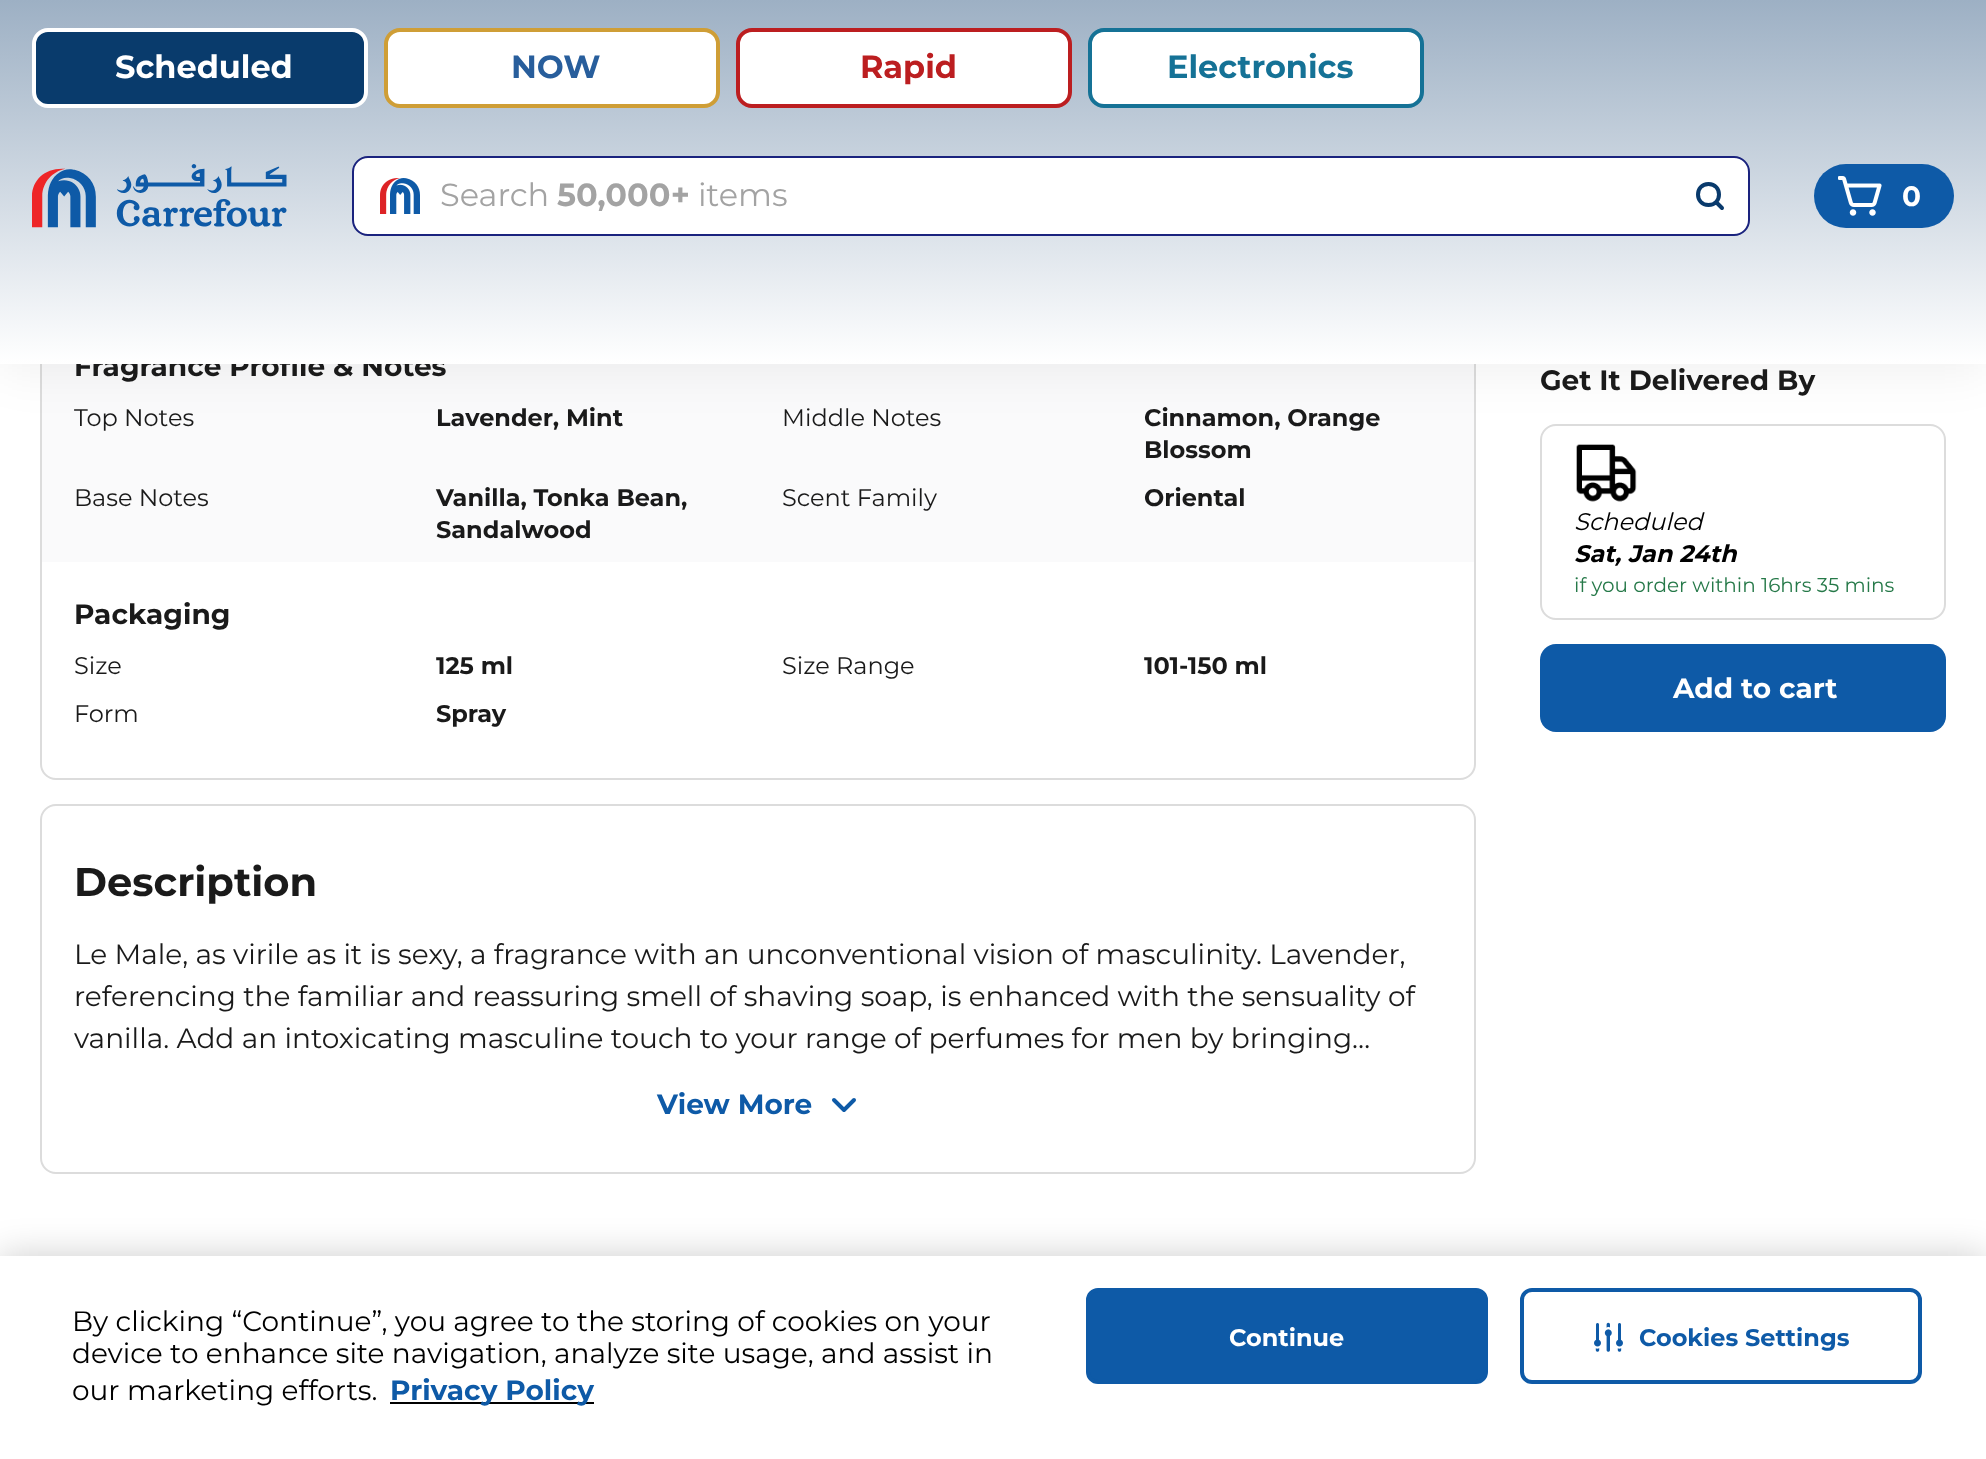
<!DOCTYPE html>
<meta charset="utf-8">
<style>body { margin: 0 } canvas { display: block }</style>
<canvas id="canvas" width="1986" height="1459"></canvas>
<script type="module">
  const canvas = document.getElementById("canvas");
  const ctx = canvas.getContext("2d");
  ctx.miterLimit = 4;
  ctx.fontKerning = "normal";
  async function loadImage(src) {
    const img = new Image();
    img.src = src;
    await img.decode();
    return img;
  }
  let gradient;

  ctx.fillStyle = "#ffffff";
  ctx.fillRect(0, 0, 1986, 1459);
  ctx.beginPath();
  ctx.roundRect(41, 129, 1434, 650, 15);
  ctx.strokeStyle = "#dcdcdc";
  ctx.lineWidth = 2;
  ctx.stroke();
  ctx.fillStyle = "#fafafb";
  ctx.fillRect(42, 364, 1432, 198);
  ctx.beginPath();
  ctx.roundRect(1541, 425, 404, 194, 15);
  ctx.stroke();
  ctx.drawImage(await loadImage("img4.png"), 1576, 444, 61, 58);
  ctx.fillStyle = "rgba(0, 0, 0, 0.06)";
  ctx.filter = "blur(24px)";
  ctx.beginPath();
  ctx.rect(0, 8, 1986, 364);
  ctx.fill();
  ctx.filter = "none";
  ctx.font = "bold 28px Montserrat";
  ctx.fillStyle = "#1a1a1a";
  ctx.fillText("Fragrance Profile & Notes", 74, 376);
  gradient = ctx.createLinearGradient(993, 0, 993, 364);
  gradient.addColorStop(0, "#9db0c4");
  gradient.addColorStop(1, "#ffffff");
  ctx.fillStyle = gradient;
  ctx.fillRect(0, 0, 1986, 364);
  ctx.fillStyle = "#093b6c";
  ctx.beginPath();
  ctx.roundRect(34, 30, 332, 76, 14);
  ctx.fill();
  ctx.strokeStyle = "#ffffff";
  ctx.lineWidth = 4;
  ctx.stroke();
  ctx.font = "bold 32px Montserrat";
  ctx.fillStyle = "#ffffff";
  ctx.fillText("Scheduled", 115, 78);
  ctx.beginPath();
  ctx.roundRect(386, 30, 332, 76, 14);
  ctx.fill();
  ctx.strokeStyle = "#cf9e36";
  ctx.stroke();
  ctx.fillStyle = "#285e9c";
  ctx.fillText("NOW", 511, 78);
  ctx.fillStyle = "#ffffff";
  ctx.beginPath();
  ctx.roundRect(738, 30, 332, 76, 14);
  ctx.fill();
  ctx.strokeStyle = "#bc1e20";
  ctx.stroke();
  ctx.fillStyle = "#bc1e20";
  ctx.fillText("Rapid", 860, 78);
  ctx.fillStyle = "#ffffff";
  ctx.beginPath();
  ctx.roundRect(1090, 30, 332, 76, 14);
  ctx.fill();
  ctx.strokeStyle = "#157296";
  ctx.stroke();
  ctx.fillStyle = "#157296";
  ctx.fillText("Electronics", 1167, 78);
  ctx.drawImage(await loadImage("img1.png"), 32, 164, 255, 64);
  ctx.fillStyle = "#ffffff";
  ctx.beginPath();
  ctx.roundRect(353, 157, 1396, 78, 15);
  ctx.fill();
  ctx.strokeStyle = "#1a237e";
  ctx.lineWidth = 2;
  ctx.stroke();
  ctx.drawImage(await loadImage("img2.png"), 380, 178, 40, 36);
  ctx.font = "32px Montserrat";
  ctx.fillStyle = "#a3a3a3";
  ctx.fillText("Search", 440, 206);
  ctx.font = "bold 32px Montserrat";
  ctx.fillText("50,000+", 557, 206);
  ctx.font = "32px Montserrat";
  ctx.fillText("items", 698, 206);
  ctx.beginPath();
  ctx.moveTo(1708.5, 205);
  ctx.bezierCurveTo(1722.5, 205, 1722.5, 184, 1708.5, 184);
  ctx.bezierCurveTo(1694.5, 184, 1694.5, 205, 1708.5, 205);
  ctx.closePath();
  ctx.moveTo(1716, 202);
  ctx.lineTo(1722, 208);
  ctx.strokeStyle = "#093a6c";
  ctx.lineWidth = 4;
  ctx.lineCap = "round";
  ctx.lineJoin = "round";
  ctx.stroke();
  ctx.fillStyle = "#0e5aa7";
  ctx.beginPath();
  ctx.roundRect(1814, 164, 140, 64, 32);
  ctx.fill();
  ctx.drawImage(await loadImage("img3.png"), 1838, 176, 44, 40);
  ctx.font = "bold 28px Montserrat";
  ctx.fillStyle = "#ffffff";
  ctx.fillText("0", 1902, 206);
  ctx.font = "24px Montserrat";
  ctx.fillStyle = "#1a1a1a";
  ctx.fillText("Top Notes", 74, 426);
  ctx.font = "bold 24px Montserrat";
  ctx.fillText("Lavender, Mint", 436, 426);
  ctx.font = "24px Montserrat";
  ctx.fillText("Middle Notes", 782, 426);
  ctx.font = "bold 24px Montserrat";
  ctx.fillText("Cinnamon, Orange", 1144, 426);
  ctx.fillText("Blossom", 1144, 458);
  ctx.font = "24px Montserrat";
  ctx.fillText("Base Notes", 74, 506);
  ctx.font = "bold 24px Montserrat";
  ctx.fillText("Vanilla, Tonka Bean,", 436, 506);
  ctx.fillText("Sandalwood", 436, 538);
  ctx.font = "24px Montserrat";
  ctx.fillText("Scent Family", 782, 506);
  ctx.font = "bold 24px Montserrat";
  ctx.fillText("Oriental", 1144, 506);
  ctx.font = "bold 28px Montserrat";
  ctx.fillText("Packaging", 74, 624);
  ctx.font = "24px Montserrat";
  ctx.fillText("Size", 74, 674);
  ctx.font = "bold 24px Montserrat";
  ctx.fillText("125 ml", 436, 674);
  ctx.font = "24px Montserrat";
  ctx.fillText("Size Range", 782, 674);
  ctx.font = "bold 24px Montserrat";
  ctx.fillText("101-150 ml", 1144, 674);
  ctx.font = "24px Montserrat";
  ctx.fillText("Form", 74, 722);
  ctx.font = "bold 24px Montserrat";
  ctx.fillText("Spray", 436, 722);
  ctx.beginPath();
  ctx.roundRect(41, 805, 1434, 368, 15);
  ctx.strokeStyle = "#dcdcdc";
  ctx.lineWidth = 2;
  ctx.lineJoin = "miter";
  ctx.stroke();
  ctx.font = "bold 40px Montserrat";
  ctx.fillText("Description", 74, 896);
  ctx.font = "28px Montserrat";
  ctx.fillText("Le Male, as virile as it is sexy, a fragrance with an unconventional vision of masculinity. Lavender,", 74, 964);
  ctx.fillText("referencing the familiar and reassuring smell of shaving soap, is enhanced with the sensuality of", 74, 1006);
  ctx.fillText("vanilla. Add an intoxicating masculine touch to your range of perfumes for men by bringing…", 74, 1048);
  ctx.font = "bold 28px Montserrat";
  ctx.fillStyle = "#0e5aa7";
  ctx.fillText("View More", 657, 1114);
  ctx.beginPath();
  ctx.moveTo(854, 1100);
  ctx.lineTo(844, 1110);
  ctx.lineTo(834, 1100);
  ctx.strokeStyle = "#0e5aa7";
  ctx.lineWidth = 4;
  ctx.lineJoin = "round";
  ctx.stroke();
  ctx.fillStyle = "#1a1a1a";
  ctx.fillText("Get It Delivered By", 1540, 390);
  ctx.font = "italic 24px Montserrat";
  ctx.fillStyle = "#000000";
  ctx.fillText("Scheduled", 1574, 530);
  ctx.font = "italic bold 24px Montserrat";
  ctx.fillText("Sat, Jan 24th", 1574, 562);
  ctx.font = "20px Montserrat";
  ctx.fillStyle = "#267949";
  ctx.fillText("if you order within 16hrs 35 mins", 1574, 592);
  ctx.fillStyle = "#0e5aa7";
  ctx.beginPath();
  ctx.roundRect(1540, 644, 406, 88, 16);
  ctx.fill();
  ctx.font = "bold 28px Montserrat";
  ctx.fillStyle = "#ffffff";
  ctx.fillText("Add to cart", 1673, 698);
  ctx.fillStyle = "rgba(0, 0, 0, 0.2)";
  ctx.filter = "blur(18px)";
  ctx.beginPath();
  ctx.rect(0, 1256, 1986, 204);
  ctx.fill();
  ctx.filter = "none";
  ctx.fillStyle = "#ffffff";
  ctx.fillRect(0, 1256, 1986, 203);
  ctx.font = "28px Montserrat";
  ctx.fillStyle = "#000000";
  ctx.fillText("By clicking “Continue”, you agree to the storing of cookies on your", 72, 1331);
  ctx.fillText("device to enhance site navigation, analyze site usage, and assist in", 72, 1363);
  ctx.fillText("our marketing efforts.", 72, 1400);
  ctx.fillRect(390, 1402, 204, 2);
  ctx.font = "bold 28px Montserrat";
  ctx.fillStyle = "#0e5aa7";
  ctx.fillText("Privacy Policy", 390, 1400);
  ctx.beginPath();
  ctx.roundRect(1088, 1290, 398, 92, 10);
  ctx.fill();
  ctx.lineJoin = "miter";
  ctx.stroke();
  ctx.font = "bold 24px Montserrat";
  ctx.fillStyle = "#ffffff";
  ctx.fillText("Continue", 1229, 1346);
  ctx.beginPath();
  ctx.roundRect(1522, 1290, 398, 92, 10);
  ctx.stroke();
  ctx.drawImage(await loadImage("img5.png"), 1594, 1322, 29, 30);
  ctx.fillStyle = "#0e5aa7";
  ctx.fillText("Cookies Settings", 1639, 1346);
</script>
